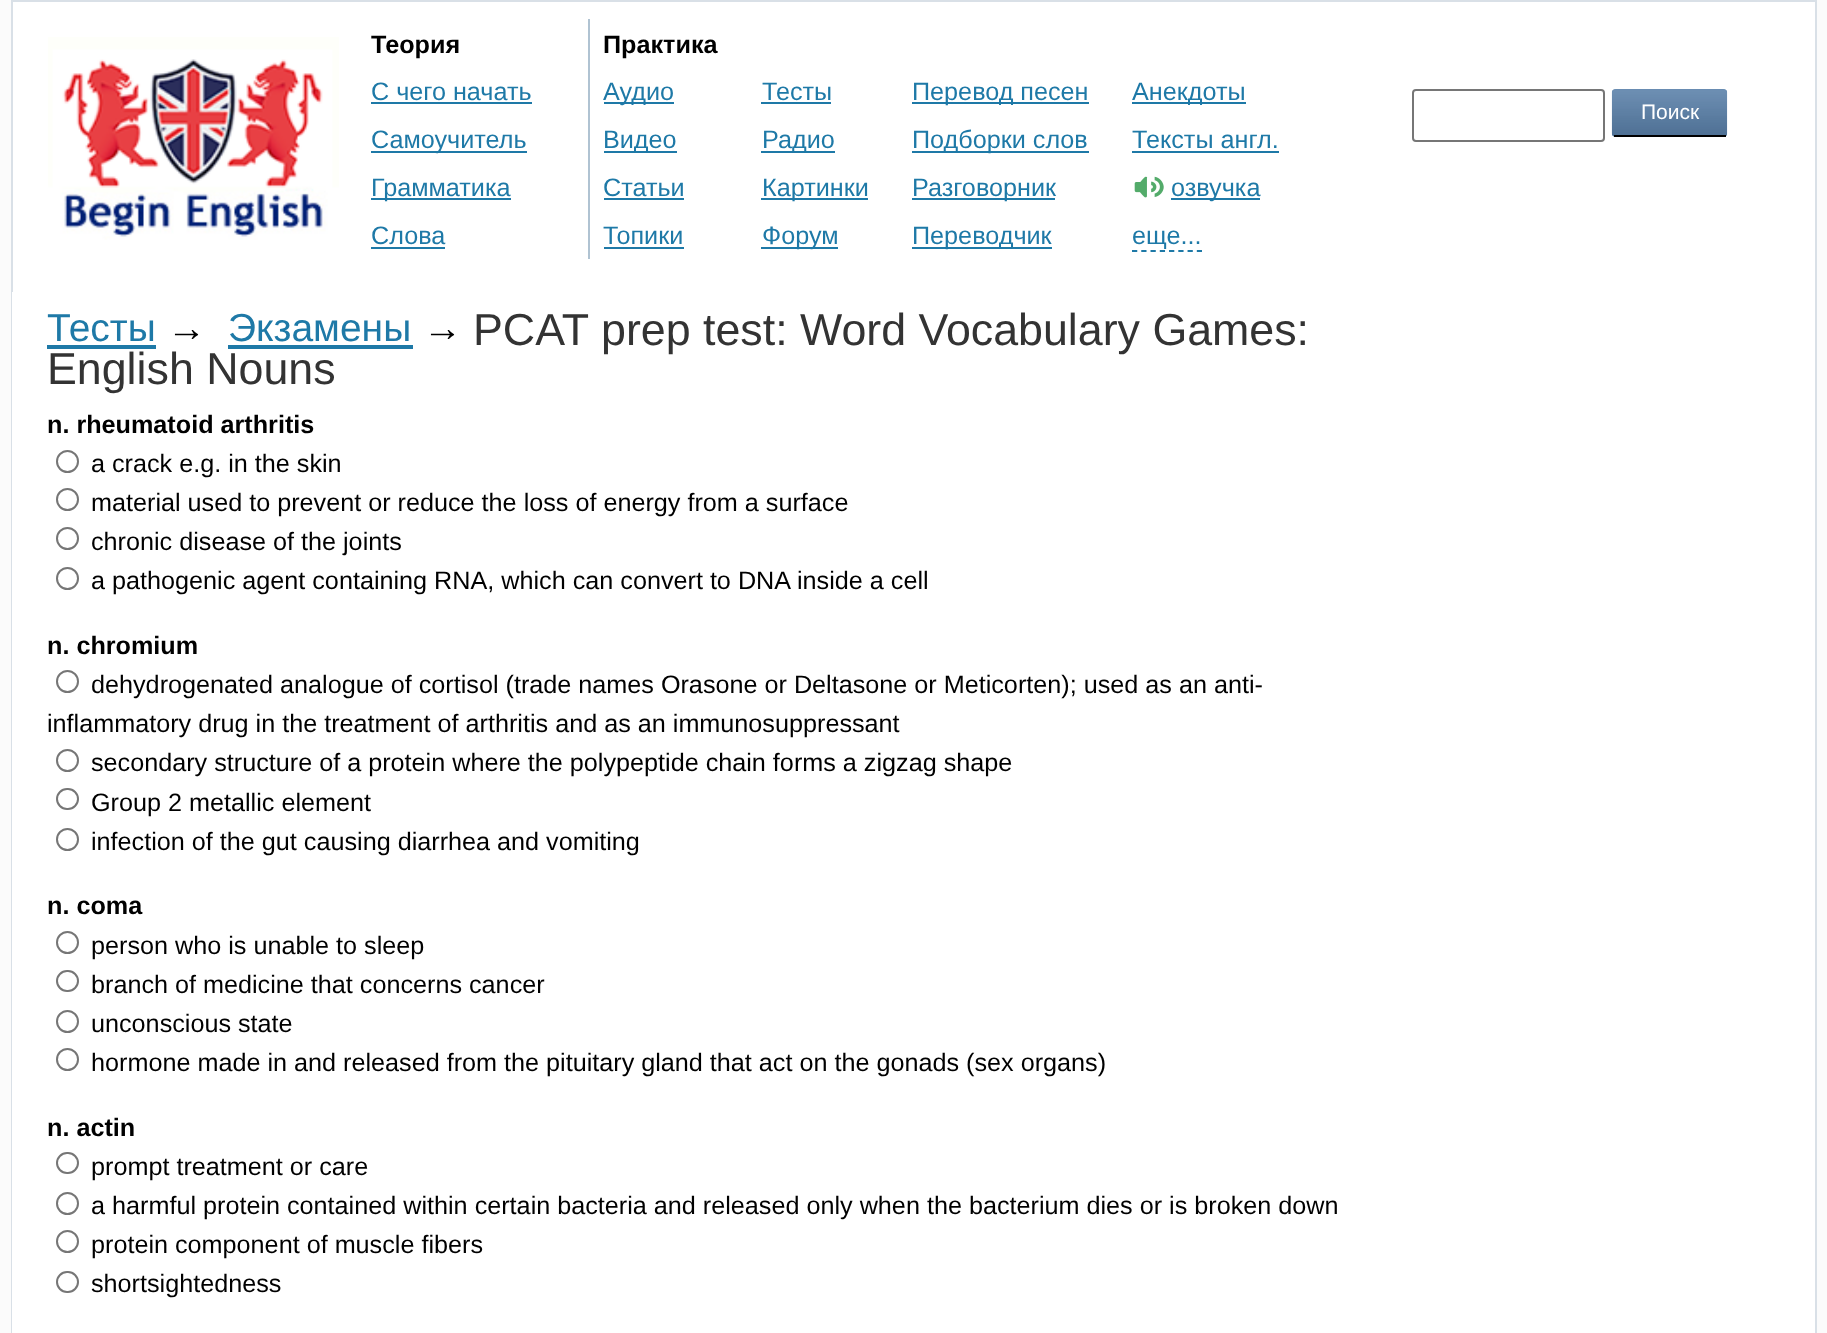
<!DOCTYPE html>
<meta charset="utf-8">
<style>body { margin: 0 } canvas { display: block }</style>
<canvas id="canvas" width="1827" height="1333"></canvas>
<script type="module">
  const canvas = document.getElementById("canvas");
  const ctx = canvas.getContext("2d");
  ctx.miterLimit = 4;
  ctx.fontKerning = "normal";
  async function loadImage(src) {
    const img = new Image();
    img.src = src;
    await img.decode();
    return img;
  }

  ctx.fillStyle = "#fbfbfb";
  ctx.fillRect(0, 0, 1827, 1333);
  ctx.fillStyle = "#ffffff";
  ctx.beginPath();
  ctx.rect(12, 1, 1804, 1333);
  ctx.fill();
  ctx.strokeStyle = "#d9e0e7";
  ctx.lineWidth = 2;
  ctx.stroke();
  ctx.drawImage(await loadImage("img1.png"), 48, 37, 291, 203);
  ctx.font = "bold 25.2px Liberation Sans";
  ctx.fillStyle = "#000000";
  ctx.fillText("Теория", 371, 53);
  ctx.font = "25.2px Liberation Sans";
  ctx.fillStyle = "#1e79a7";
  ctx.fillText("С чего начать", 371, 100);
  ctx.fillRect(371, 102, 161, 2);
  ctx.fillRect(371, 151, 156, 2);
  ctx.fillText("Самоучитель", 371, 148);
  ctx.fillRect(371, 198, 140, 2);
  ctx.fillText("Грамматика", 371, 196);
  ctx.fillText("Слова", 371, 244);
  ctx.fillRect(371, 247, 74, 2);
  ctx.fillStyle = "#b0c3d2";
  ctx.fillRect(588, 19, 2, 240);
  ctx.font = "bold 25.2px Liberation Sans";
  ctx.fillStyle = "#000000";
  ctx.fillText("Практика", 603, 53);
  ctx.fillStyle = "#1e79a7";
  ctx.fillRect(604, 102, 70, 2);
  ctx.font = "25.2px Liberation Sans";
  ctx.fillText("Аудио", 603, 100);
  ctx.fillRect(604, 151, 73, 2);
  ctx.fillText("Видео", 603, 148);
  ctx.fillText("Статьи", 603, 196);
  ctx.fillRect(604, 198, 80, 2);
  ctx.fillText("Топики", 603, 244);
  ctx.fillRect(604, 247, 80, 2);
  ctx.fillText("Тесты", 762, 100);
  ctx.fillRect(761, 102, 70, 2);
  ctx.fillRect(761, 151, 74, 2);
  ctx.fillText("Радио", 762, 148);
  ctx.fillRect(761, 198, 107, 2);
  ctx.fillText("Картинки", 762, 196);
  ctx.fillRect(761, 247, 77, 2);
  ctx.fillText("Форум", 762, 244);
  ctx.fillRect(912, 102, 177, 2);
  ctx.fillText("Перевод песен", 912, 100);
  ctx.fillRect(912, 151, 177, 2);
  ctx.fillText("Подборки слов", 912, 148);
  ctx.fillRect(912, 198, 143, 2);
  ctx.fillText("Разговорник", 912, 196);
  ctx.fillRect(912, 247, 140, 2);
  ctx.fillText("Переводчик", 912, 244);
  ctx.fillRect(1132, 102, 114, 2);
  ctx.fillText("Анекдоты", 1132, 100);
  ctx.fillText("Тексты англ.", 1132, 148);
  ctx.fillRect(1132, 151, 147, 2);
  ctx.drawImage(await loadImage("img2.png"), 1134, 176, 30, 22);
  ctx.fillRect(1171, 198, 89, 2);
  ctx.fillText("озвучка", 1171, 196);
  ctx.fillText("еще...", 1132, 244);
  ctx.beginPath();
  ctx.moveTo(1132, 251);
  ctx.lineTo(1202, 251);
  ctx.strokeStyle = "#1e79a7";
  ctx.lineWidth = 1.8;
  ctx.setLineDash([5.25, 4.01]);
  ctx.stroke();
  ctx.beginPath();
  ctx.roundRect(1413, 90, 191, 51, 3);
  ctx.strokeStyle = "#767676";
  ctx.lineWidth = 2;
  ctx.setLineDash([]);
  ctx.stroke();
  ctx.fillStyle = "#658ab0";
  ctx.beginPath();
  ctx.roundRect(1612, 89, 115, 48, 4);
  ctx.fill();
  ctx.drawImage(await loadImage("img3.png"), 1611, 89, 117, 48);
  ctx.fillStyle = "#000000";
  ctx.fillRect(1614, 135, 112, 2);
  ctx.font = "21px Liberation Sans";
  ctx.fillStyle = "#ffffff";
  ctx.fillText("Поиск", 1641, 119);
  ctx.fillRect(12, 292, 1, 1041);
  ctx.font = "44.75px Liberation Sans";
  ctx.fillStyle = "#333333";
  ctx.fillText("PCAT", 473, 345);
  ctx.fillText("prep test: Word Vocabulary Games:", 601, 345);
  ctx.fillText("English Nouns", 47, 384);
  ctx.font = "39px Liberation Sans";
  ctx.fillStyle = "#1e79a7";
  ctx.fillText("Тесты", 47, 341);
  ctx.fillRect(47, 345, 109, 4);
  ctx.fillStyle = "#000000";
  ctx.fillText("→", 167, 341);
  ctx.fillStyle = "#1e79a7";
  ctx.fillText("Экзамены", 228, 341);
  ctx.fillRect(228, 345, 185, 4);
  ctx.fillStyle = "#000000";
  ctx.fillText("→", 423, 341);
  ctx.font = "bold 25.2px Liberation Sans";
  ctx.fillText("n. rheumatoid arthritis", 47, 433);
  ctx.beginPath();
  ctx.arc(67.5, 461.5, 10.5, 0, Math.PI * 2);
  ctx.stroke();
  ctx.font = "25.2px Liberation Sans";
  ctx.fillText("a crack e.g. in the skin", 91, 472);
  ctx.beginPath();
  ctx.arc(67.5, 499.5, 10.5, 0, Math.PI * 2);
  ctx.stroke();
  ctx.fillText("material used to prevent or reduce the loss of energy from a surface", 91, 511);
  ctx.beginPath();
  ctx.arc(67.5, 538.5, 10.5, 0, Math.PI * 2);
  ctx.stroke();
  ctx.fillText("chronic disease of the joints", 91, 550);
  ctx.beginPath();
  ctx.arc(67.5, 578.5, 10.5, 0, Math.PI * 2);
  ctx.stroke();
  ctx.fillText("a pathogenic agent containing RNA, which can convert to DNA", 91, 589);
  ctx.fillText("inside a cell", 797, 589);
  ctx.font = "bold 25.2px Liberation Sans";
  ctx.fillText("n. chromium", 47, 654);
  ctx.beginPath();
  ctx.arc(67.5, 681.5, 10.5, 0, Math.PI * 2);
  ctx.stroke();
  ctx.font = "25.2px Liberation Sans";
  ctx.fillText("dehydrogenated analogue of cortisol (trade names Orasone or Deltasone or Meticorten); used as an anti-", 91, 693);
  ctx.fillText("inflammatory drug in the treatment of arthritis and as an immunosuppressant", 47, 732);
  ctx.beginPath();
  ctx.arc(67.5, 760.5, 10.5, 0, Math.PI * 2);
  ctx.stroke();
  ctx.fillText("secondary structure of a protein where the polypeptide chain forms a zigzag shape", 91, 771);
  ctx.beginPath();
  ctx.roundRect(57, 789, 21, 20, 10);
  ctx.stroke();
  ctx.fillText("Group 2 metallic element", 91, 811);
  ctx.beginPath();
  ctx.arc(67.5, 839.5, 10.5, 0, Math.PI * 2);
  ctx.stroke();
  ctx.fillText("infection of the gut causing diarrhea and vomiting", 91, 850);
  ctx.font = "bold 25.2px Liberation Sans";
  ctx.fillText("n. coma", 47, 914);
  ctx.beginPath();
  ctx.arc(67.5, 942.5, 10.5, 0, Math.PI * 2);
  ctx.stroke();
  ctx.font = "25.2px Liberation Sans";
  ctx.fillText("person who is unable to sleep", 91, 954);
  ctx.beginPath();
  ctx.roundRect(57, 971, 21, 20, 10);
  ctx.stroke();
  ctx.fillText("branch of medicine that concerns cancer", 91, 993);
  ctx.beginPath();
  ctx.arc(67.5, 1021.5, 10.5, 0, Math.PI * 2);
  ctx.stroke();
  ctx.fillText("unconscious state", 91, 1032);
  ctx.beginPath();
  ctx.arc(67.5, 1059.5, 10.5, 0, Math.PI * 2);
  ctx.stroke();
  ctx.fillText("hormone made in and released from the pituitary gland that act on the gonads (sex organs)", 91, 1071);
  ctx.font = "bold 25.2px Liberation Sans";
  ctx.fillText("n. actin", 47, 1136);
  ctx.beginPath();
  ctx.roundRect(57, 1153, 21, 20, 10);
  ctx.stroke();
  ctx.font = "25.2px Liberation Sans";
  ctx.fillText("prompt treatment or care", 91, 1175);
  ctx.beginPath();
  ctx.arc(67.5, 1203.5, 10.5, 0, Math.PI * 2);
  ctx.stroke();
  ctx.fillText("a harmful protein contained within certain bacteria and released only when the bacterium dies or is broken down", 91, 1214);
  ctx.beginPath();
  ctx.arc(67.5, 1241.5, 10.5, 0, Math.PI * 2);
  ctx.stroke();
  ctx.fillText("protein component of muscle fibers", 91, 1253);
  ctx.beginPath();
  ctx.roundRect(57, 1272, 21, 20, 10);
  ctx.stroke();
  ctx.fillText("shortsightedness", 91, 1292);
</script>
